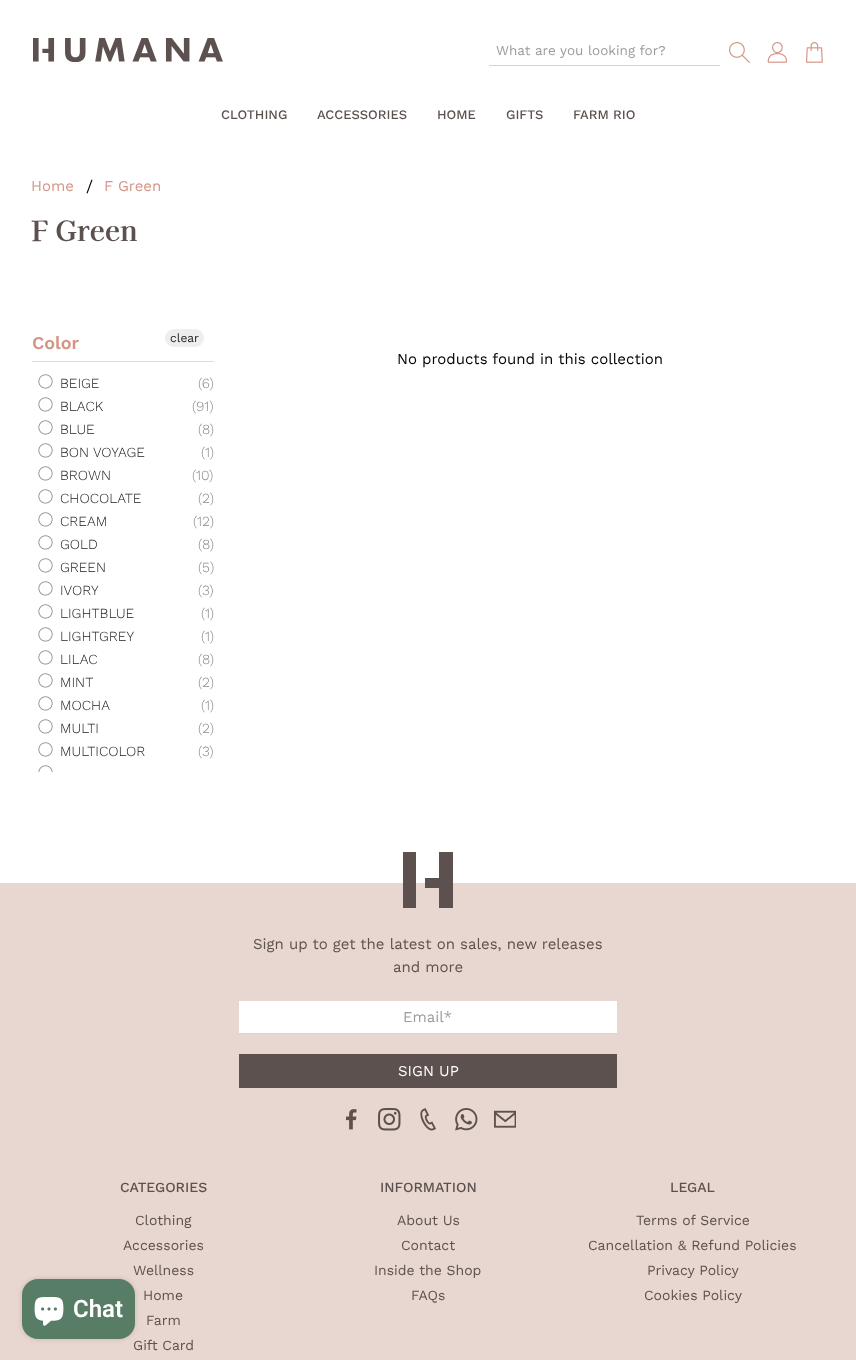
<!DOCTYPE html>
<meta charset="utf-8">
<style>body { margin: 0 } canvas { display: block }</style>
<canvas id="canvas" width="856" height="1360"></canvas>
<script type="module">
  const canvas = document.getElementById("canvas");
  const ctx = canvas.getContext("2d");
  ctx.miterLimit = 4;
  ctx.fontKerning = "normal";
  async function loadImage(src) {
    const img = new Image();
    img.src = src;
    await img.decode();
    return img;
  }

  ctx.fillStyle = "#ffffff";
  ctx.fillRect(0, 0, 856, 1360);
  ctx.drawImage(await loadImage("img1.png"), 33, 38, 190, 24);
  ctx.fillStyle = "#d3d3d3";
  ctx.fillRect(489, 65, 231, 1);
  ctx.font = "13.5px Work Sans";
  ctx.fillStyle = "#9b9b9b";
  ctx.fillText("What are you looking for?", 496, 55);
  ctx.drawImage(await loadImage("img2.png"), 729, 42, 21, 21);
  ctx.drawImage(await loadImage("img3.png"), 767, 42, 21, 21);
  ctx.drawImage(await loadImage("img4.png"), 806, 42, 17, 21);
  ctx.font = "500 13px Work Sans";
  ctx.fillStyle = "#5c514e";
  ctx.fillText("CLOTHING", 221, 119);
  ctx.fillText("ACCESSORIES", 317, 119);
  ctx.fillText("HOME", 437, 119);
  ctx.fillText("GIFTS", 506, 119);
  ctx.fillText("FARM RIO", 573, 119);
  ctx.font = "15px Work Sans";
  ctx.fillStyle = "#d59586";
  ctx.fillText("Home", 31, 191);
  ctx.fillStyle = "#000000";
  ctx.beginPath();
  ctx.moveTo(86.5, 193);
  ctx.lineTo(91.5, 179.5);
  ctx.lineTo(92.5, 180);
  ctx.lineTo(87.5, 193.5);
  ctx.closePath();
  ctx.fill();
  ctx.fillStyle = "#d59586";
  ctx.fillText("F Green", 104, 191);
  ctx.font = "bold 28px Kaisei Decol";
  ctx.fillStyle = "#5c514e";
  ctx.fillText("F Green", 31, 241);
  ctx.fillStyle = "#dddddd";
  ctx.fillRect(32, 361, 182, 1);
  ctx.font = "600 18px Work Sans";
  ctx.fillStyle = "#d59586";
  ctx.fillText("Color", 32, 349);
  ctx.fillStyle = "#eeeeee";
  ctx.beginPath();
  ctx.roundRect(165, 329, 39, 18, 9);
  ctx.fill();
  ctx.font = "12px Work Sans";
  ctx.fillStyle = "#222222";
  ctx.fillText("clear", 170, 342);
  ctx.drawImage(await loadImage("img5.png"), 38, 374, 15, 15);
  ctx.font = "300 14px Work Sans";
  ctx.fillText("BEIGE", 60, 388);
  ctx.fillStyle = "#888888";
  ctx.fillText("(6)", 198, 388);
  ctx.drawImage(await loadImage("img5.png"), 38, 397, 15, 15);
  ctx.fillStyle = "#222222";
  ctx.fillText("BLACK", 60, 411);
  ctx.fillStyle = "#888888";
  ctx.fillText("(91)", 192, 411);
  ctx.drawImage(await loadImage("img5.png"), 38, 420, 15, 15);
  ctx.fillStyle = "#222222";
  ctx.fillText("BLUE", 60, 434);
  ctx.fillStyle = "#888888";
  ctx.fillText("(8)", 198, 434);
  ctx.drawImage(await loadImage("img5.png"), 38, 443, 15, 15);
  ctx.fillStyle = "#222222";
  ctx.fillText("BON VOYAGE", 60, 457);
  ctx.fillStyle = "#888888";
  ctx.fillText("(1)", 201, 457);
  ctx.drawImage(await loadImage("img5.png"), 38, 466, 15, 15);
  ctx.fillStyle = "#222222";
  ctx.fillText("BROWN", 60, 480);
  ctx.fillStyle = "#888888";
  ctx.fillText("(10)", 192, 480);
  ctx.drawImage(await loadImage("img5.png"), 38, 489, 15, 15);
  ctx.fillStyle = "#222222";
  ctx.fillText("CHOCOLATE", 60, 503);
  ctx.fillStyle = "#888888";
  ctx.fillText("(2)", 198, 503);
  ctx.drawImage(await loadImage("img5.png"), 38, 512, 15, 15);
  ctx.fillStyle = "#222222";
  ctx.fillText("CREAM", 60, 526);
  ctx.fillStyle = "#888888";
  ctx.fillText("(12)", 193, 526);
  ctx.drawImage(await loadImage("img5.png"), 38, 535, 15, 15);
  ctx.fillStyle = "#222222";
  ctx.fillText("GOLD", 60, 549);
  ctx.fillStyle = "#888888";
  ctx.fillText("(8)", 198, 549);
  ctx.drawImage(await loadImage("img5.png"), 38, 558, 15, 15);
  ctx.fillStyle = "#222222";
  ctx.fillText("GREEN", 60, 572);
  ctx.fillStyle = "#888888";
  ctx.fillText("(5)", 198, 572);
  ctx.drawImage(await loadImage("img5.png"), 38, 581, 15, 15);
  ctx.fillStyle = "#222222";
  ctx.fillText("IVORY", 60, 595);
  ctx.fillStyle = "#888888";
  ctx.fillText("(3)", 198, 595);
  ctx.drawImage(await loadImage("img5.png"), 38, 604, 15, 15);
  ctx.fillStyle = "#222222";
  ctx.fillText("LIGHTBLUE", 60, 618);
  ctx.fillStyle = "#888888";
  ctx.fillText("(1)", 201, 618);
  ctx.drawImage(await loadImage("img5.png"), 38, 627, 15, 15);
  ctx.fillStyle = "#222222";
  ctx.fillText("LIGHTGREY", 60, 641);
  ctx.fillStyle = "#888888";
  ctx.fillText("(1)", 201, 641);
  ctx.drawImage(await loadImage("img5.png"), 38, 650, 15, 15);
  ctx.fillStyle = "#222222";
  ctx.fillText("LILAC", 60, 664);
  ctx.fillStyle = "#888888";
  ctx.fillText("(8)", 198, 664);
  ctx.drawImage(await loadImage("img5.png"), 38, 673, 15, 15);
  ctx.fillStyle = "#222222";
  ctx.fillText("MINT", 60, 687);
  ctx.fillStyle = "#888888";
  ctx.fillText("(2)", 198, 687);
  ctx.drawImage(await loadImage("img5.png"), 38, 696, 15, 15);
  ctx.fillStyle = "#222222";
  ctx.fillText("MOCHA", 60, 710);
  ctx.fillStyle = "#888888";
  ctx.fillText("(1)", 201, 710);
  ctx.drawImage(await loadImage("img5.png"), 38, 719, 15, 15);
  ctx.fillStyle = "#222222";
  ctx.fillText("MULTI", 60, 733);
  ctx.fillStyle = "#888888";
  ctx.fillText("(2)", 198, 733);
  ctx.drawImage(await loadImage("img5.png"), 38, 742, 15, 15);
  ctx.fillStyle = "#222222";
  ctx.fillText("MULTICOLOR", 60, 756);
  ctx.fillStyle = "#888888";
  ctx.fillText("(3)", 198, 756);
  ctx.drawImage(await loadImage("img6.png"), 38, 765, 15, 7);
  ctx.font = "15px Work Sans";
  ctx.fillStyle = "#000000";
  ctx.fillText("No products found in this collection", 397, 364);
  ctx.fillStyle = "#e8d6d1";
  ctx.fillRect(0, 883, 856, 477);
  ctx.fillStyle = "#5c514e";
  ctx.fillRect(403, 852, 13, 56);
  ctx.beginPath();
  ctx.moveTo(439, 878);
  ctx.lineTo(425, 878);
  ctx.lineTo(425, 888);
  ctx.lineTo(439, 888);
  ctx.lineTo(439, 908);
  ctx.lineTo(453, 908);
  ctx.lineTo(453, 852);
  ctx.lineTo(439, 852);
  ctx.closePath();
  ctx.fill();
  ctx.fillText("Sign up to get the latest on sales, new releases", 253, 949);
  ctx.fillText("and more", 393, 972);
  ctx.fillStyle = "#ffffff";
  ctx.fillRect(239, 1001, 378, 32);
  ctx.fillStyle = "#d3d3d3";
  ctx.fillRect(239, 1033, 378, 1);
  ctx.fillStyle = "#9b9b9b";
  ctx.fillText("Email*", 403, 1022);
  ctx.fillStyle = "#5c514e";
  ctx.fillRect(239, 1054, 378, 34);
  ctx.fillStyle = "#ffffff";
  ctx.fillText("SIGN UP", 398, 1076);
  ctx.drawImage(await loadImage("img7.png"), 346, 1109, 11, 21);
  ctx.drawImage(await loadImage("img8.png"), 378, 1108, 23, 23);
  ctx.drawImage(await loadImage("img9.png"), 420, 1108, 16, 23);
  ctx.drawImage(await loadImage("img10.png"), 455, 1108, 23, 23);
  ctx.drawImage(await loadImage("img11.png"), 494, 1110, 22, 18);
  ctx.fillStyle = "rgba(0, 0, 0, 0.15)";
  ctx.filter = "blur(2.5px)";
  ctx.beginPath();
  ctx.roundRect(22, 1279, 113, 60, 16);
  ctx.fill();
  ctx.filter = "none";
  ctx.fillStyle = "#587d67";
  ctx.beginPath();
  ctx.roundRect(22, 1279, 113, 60, 16);
  ctx.fill();
  ctx.drawImage(await loadImage("img12.png"), 34, 1297, 30, 29);
  ctx.font = "600 24px Roboto";
  ctx.fillStyle = "#ffffff";
  ctx.fillText("Chat", 73, 1317);
  ctx.font = "500 14px Work Sans";
  ctx.fillStyle = "#5c514e";
  ctx.fillText("CATEGORIES", 120, 1192);
  ctx.font = "14px Work Sans";
  ctx.fillText("Clothing", 135, 1225);
  ctx.fillText("Accessories", 123, 1250);
  ctx.fillText("Wellness", 133, 1275);
  ctx.fillText("Home", 143, 1300);
  ctx.fillText("Farm", 146, 1325);
  ctx.fillText("Gift Card", 133, 1350);
  ctx.font = "500 14px Work Sans";
  ctx.fillText("INFORMATION", 380, 1192);
  ctx.font = "14px Work Sans";
  ctx.fillText("About Us", 397, 1225);
  ctx.fillText("Contact", 401, 1250);
  ctx.fillText("Inside the Shop", 374, 1275);
  ctx.fillText("FAQs", 411, 1300);
  ctx.font = "500 14px Work Sans";
  ctx.fillText("LEGAL", 670, 1192);
  ctx.font = "14px Work Sans";
  ctx.fillText("Terms of Service", 636, 1225);
  ctx.fillText("Cancellation & Refund Policies", 588, 1250);
  ctx.fillText("Privacy Policy", 647, 1275);
  ctx.fillText("Cookies Policy", 644, 1300);
</script>
